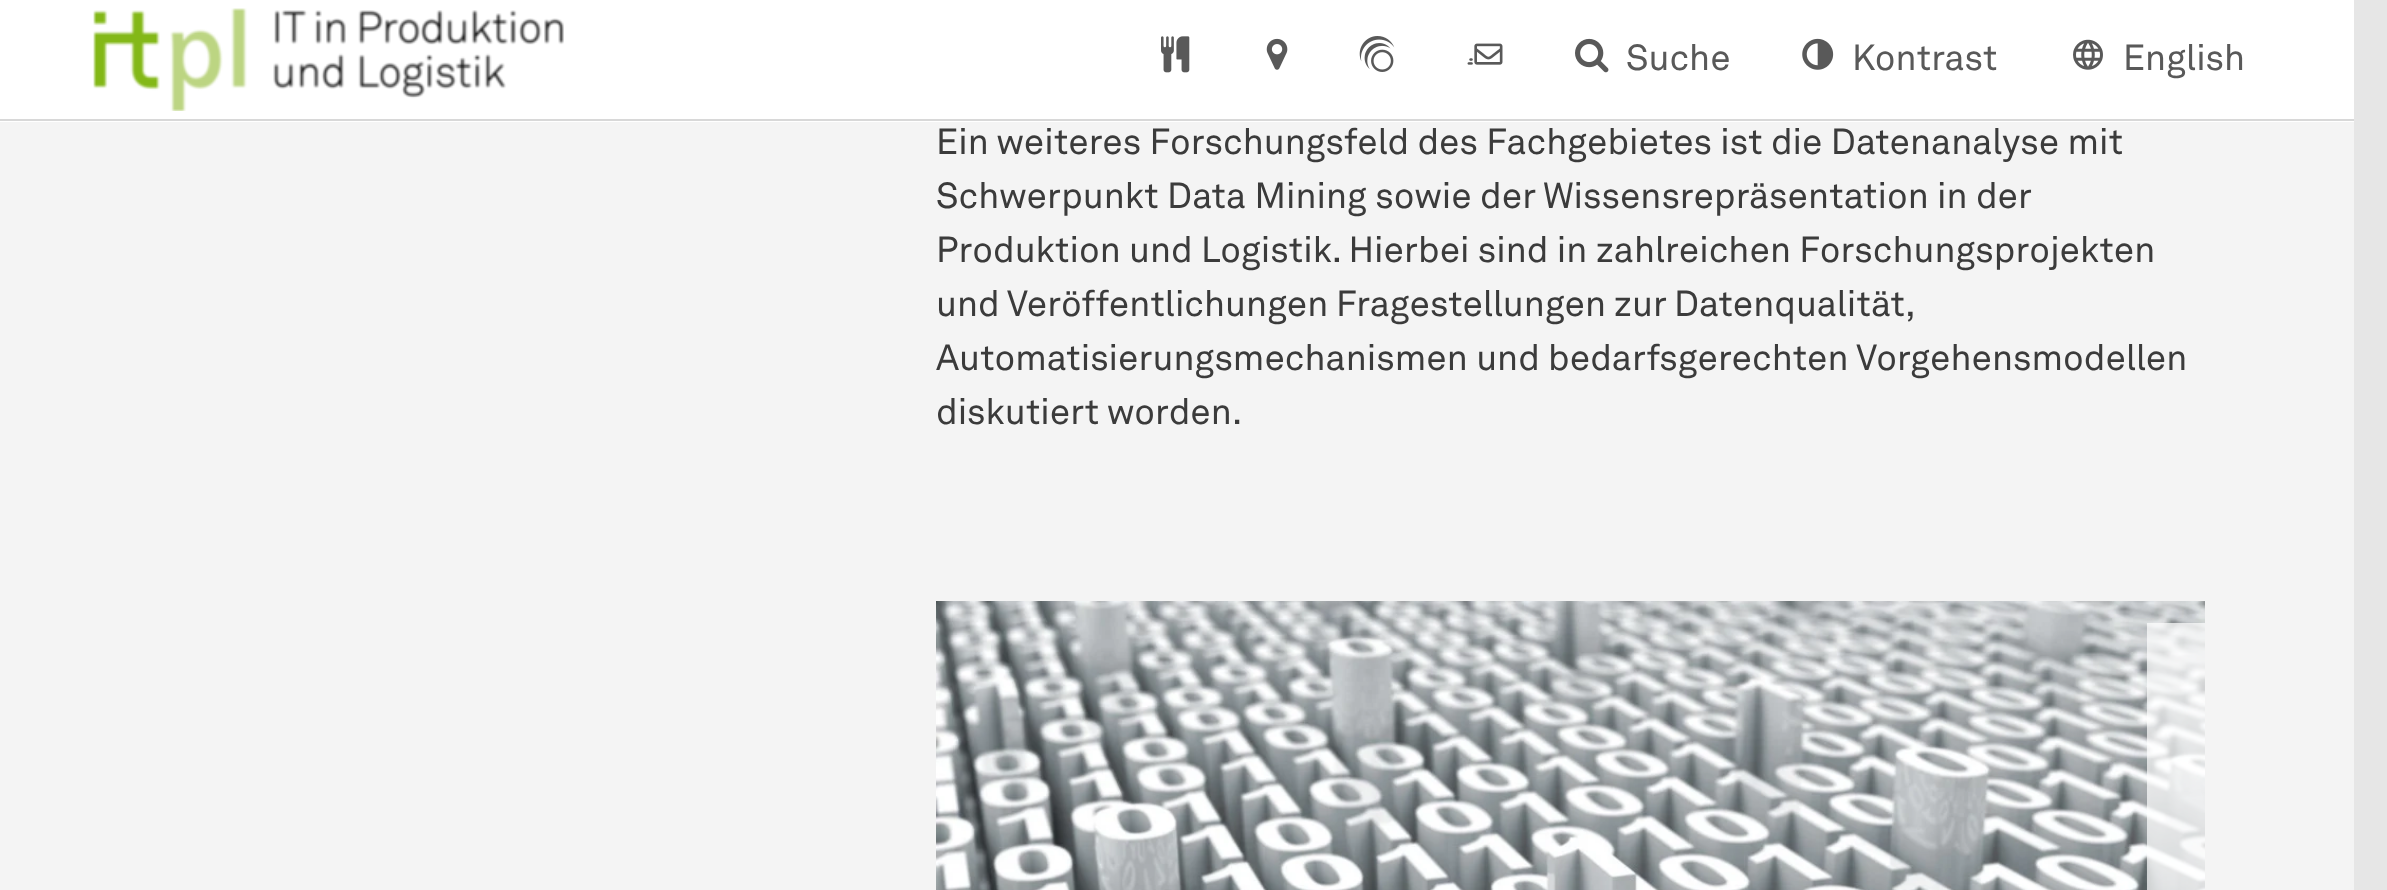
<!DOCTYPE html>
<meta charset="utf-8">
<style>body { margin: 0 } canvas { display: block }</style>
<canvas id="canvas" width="2387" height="890"></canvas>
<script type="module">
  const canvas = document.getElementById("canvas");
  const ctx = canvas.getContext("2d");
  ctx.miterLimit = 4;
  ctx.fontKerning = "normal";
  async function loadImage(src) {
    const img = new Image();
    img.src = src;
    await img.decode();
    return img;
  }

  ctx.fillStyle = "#e6e6e6";
  ctx.fillRect(0, 0, 2387, 890);
  ctx.fillStyle = "#ffffff";
  ctx.fillRect(0, 0, 2354, 122);
  ctx.fillStyle = "#d8d8d8";
  ctx.fillRect(0, 119, 2354, 2);
  ctx.drawImage(await loadImage("img1.png"), 93, 8, 471, 103);
  ctx.drawImage(await loadImage("img2.png"), 1161, 36, 29, 37);
  ctx.drawImage(await loadImage("img3.png"), 1266, 38, 22, 32);
  ctx.drawImage(await loadImage("img4.png"), 1359, 36, 36, 36);
  ctx.drawImage(await loadImage("img5.png"), 1467, 43, 36, 22);
  ctx.drawImage(await loadImage("img6.png"), 1575, 38, 34, 35);
  ctx.font = "36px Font";
  ctx.fillStyle = "#595959";
  ctx.fillText("Suche", 1626, 70);
  ctx.drawImage(await loadImage("img7.png"), 1802, 38, 32, 32);
  ctx.fillText("Kontrast", 1852, 70);
  ctx.drawImage(await loadImage("img8.png"), 2073, 39, 30, 31);
  ctx.fillText("English", 2123, 70);
  ctx.fillStyle = "#f4f4f4";
  ctx.fillRect(0, 122, 2354, 768);
  ctx.fillStyle = "#3b3b3b";
  ctx.fillText("Ein weiteres Forschungsfeld des Fachgebietes ist die Datenanalyse mit", 936, 154);
  ctx.fillText("Schwerpunkt Data Mining sowie der Wissensrepräsentation in der", 936, 208);
  ctx.fillText("Produktion und Logistik. Hierbei sind in zahlreichen Forschungsprojekten", 936, 262);
  ctx.wordSpacing = "-0.5px";
  ctx.fillText("und Veröffentlichungen Fragestellungen zur Datenqualität,", 936, 316);
  ctx.wordSpacing = "0px";
  ctx.fillText("Automatisierungsmechanismen und bedarfsgerechten Vorgehensmodellen", 936, 370);
  ctx.fillText("diskutiert worden.", 936, 424);
  ctx.drawImage(await loadImage("img9.png"), 936, 601, 1269, 289);
  ctx.fillStyle = "rgba(255, 255, 255, 0.7)";
  ctx.fillRect(2147, 623, 58, 267);
</script>
